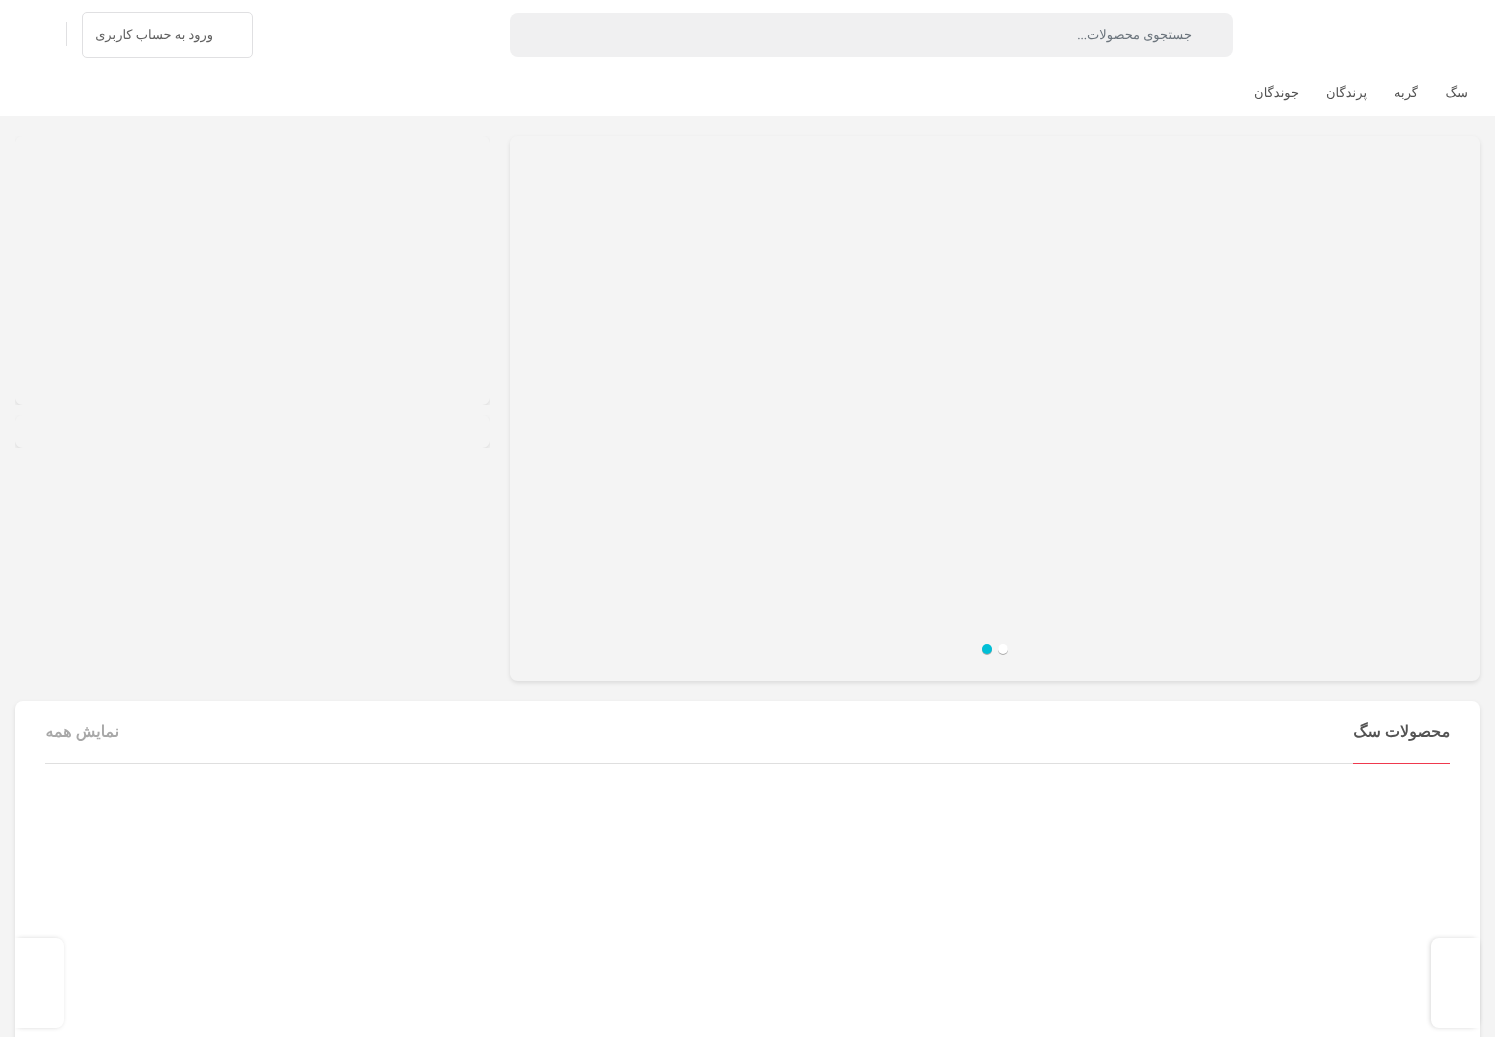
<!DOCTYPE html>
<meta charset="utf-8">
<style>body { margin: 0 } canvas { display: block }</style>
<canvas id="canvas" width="1495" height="1037"></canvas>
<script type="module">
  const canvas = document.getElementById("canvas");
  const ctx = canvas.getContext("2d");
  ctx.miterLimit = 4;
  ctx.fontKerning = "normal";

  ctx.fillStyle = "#f4f4f4";
  ctx.fillRect(0, 0, 1495, 1037);
  ctx.fillStyle = "#ffffff";
  ctx.fillRect(0, 0, 1495, 116);
  ctx.fillStyle = "#f0f0f1";
  ctx.beginPath();
  ctx.roundRect(510, 13, 723, 44, 8);
  ctx.fill();
  ctx.wordSpacing = "-1px";
  ctx.direction = "rtl";
  ctx.font = "13px DejaVu Sans";
  ctx.fillStyle = "#6c757d";
  ctx.fillText("جستجوی محصولات", 1192, 39);
  ctx.wordSpacing = "0px";
  ctx.font = "13px Liberation Serif";
  ctx.fillText("...", 1087, 39);
  ctx.beginPath();
  ctx.roundRect(82.5, 12.5, 170, 45, 4.5);
  ctx.strokeStyle = "#e0e0e2";
  ctx.stroke();
  ctx.wordSpacing = "-1px";
  ctx.font = "13px DejaVu Sans";
  ctx.fillStyle = "#616161";
  ctx.fillText("ورود به حساب کاربری", 213, 39);
  ctx.fillStyle = "#e0e0e2";
  ctx.fillRect(66, 22, 1, 24);
  ctx.wordSpacing = "0px";
  ctx.fillStyle = "#535353";
  ctx.fillText("سگ", 1468, 97);
  ctx.fillText("گربه", 1418, 97);
  ctx.fillText("پرندگان", 1367, 97);
  ctx.fillText("جوندگان", 1299, 97);
  ctx.save();
  ctx.beginPath();
  ctx.moveTo(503, 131);
  ctx.lineTo(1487, 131);
  ctx.lineTo(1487, 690);
  ctx.lineTo(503, 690);
  ctx.closePath();
  ctx.moveTo(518, 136);
  ctx.lineTo(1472, 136);
  ctx.bezierCurveTo(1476.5, 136, 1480, 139.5, 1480, 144);
  ctx.lineTo(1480, 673);
  ctx.bezierCurveTo(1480, 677.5, 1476.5, 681, 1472, 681);
  ctx.lineTo(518, 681);
  ctx.bezierCurveTo(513.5, 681, 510, 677.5, 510, 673);
  ctx.lineTo(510, 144);
  ctx.bezierCurveTo(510, 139.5, 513.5, 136, 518, 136);
  ctx.closePath();
  ctx.clip("evenodd");
  ctx.fillStyle = "rgba(0, 0, 0, 0.1)";
  ctx.filter = "blur(2px)";
  ctx.beginPath();
  ctx.roundRect(510, 138, 970, 545, 8);
  ctx.fill();
  ctx.filter = "none";
  ctx.restore();
  ctx.fillStyle = "rgba(0, 0, 0, 0.3)";
  ctx.filter = "blur(0.5px)";
  ctx.beginPath();
  ctx.roundRect(998, 645, 10, 10, 5);
  ctx.fill();
  ctx.filter = "none";
  ctx.fillStyle = "#ffffff";
  ctx.beginPath();
  ctx.arc(1003, 649, 5, 0, Math.PI * 2);
  ctx.fill();
  ctx.fillStyle = "rgba(0, 0, 0, 0.3)";
  ctx.filter = "blur(0.5px)";
  ctx.beginPath();
  ctx.roundRect(982, 645, 10, 10, 5);
  ctx.fill();
  ctx.filter = "none";
  ctx.fillStyle = "#00bfd6";
  ctx.beginPath();
  ctx.arc(987, 649, 5, 0, Math.PI * 2);
  ctx.fill();
  ctx.save();
  ctx.beginPath();
  ctx.rect(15, 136, 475, 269);
  ctx.clip();
  ctx.beginPath();
  ctx.moveTo(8, 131);
  ctx.lineTo(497, 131);
  ctx.lineTo(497, 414);
  ctx.lineTo(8, 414);
  ctx.closePath();
  ctx.moveTo(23, 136);
  ctx.lineTo(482, 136);
  ctx.bezierCurveTo(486.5, 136, 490, 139.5, 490, 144);
  ctx.lineTo(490, 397);
  ctx.bezierCurveTo(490, 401.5, 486.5, 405, 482, 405);
  ctx.lineTo(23, 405);
  ctx.bezierCurveTo(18.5, 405, 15, 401.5, 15, 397);
  ctx.lineTo(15, 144);
  ctx.bezierCurveTo(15, 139.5, 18.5, 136, 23, 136);
  ctx.closePath();
  ctx.clip("evenodd");
  ctx.fillStyle = "rgba(0, 0, 0, 0.1)";
  ctx.filter = "blur(2px)";
  ctx.beginPath();
  ctx.roundRect(15, 138, 475, 269, 8);
  ctx.fill();
  ctx.filter = "none";
  ctx.restore();
  ctx.save();
  ctx.beginPath();
  ctx.rect(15, 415, 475, 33);
  ctx.clip();
  ctx.beginPath();
  ctx.moveTo(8, 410);
  ctx.lineTo(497, 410);
  ctx.lineTo(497, 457);
  ctx.lineTo(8, 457);
  ctx.closePath();
  ctx.moveTo(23, 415);
  ctx.lineTo(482, 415);
  ctx.bezierCurveTo(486.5, 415, 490, 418.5, 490, 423);
  ctx.lineTo(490, 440);
  ctx.bezierCurveTo(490, 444.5, 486.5, 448, 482, 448);
  ctx.lineTo(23, 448);
  ctx.bezierCurveTo(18.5, 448, 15, 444.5, 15, 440);
  ctx.lineTo(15, 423);
  ctx.bezierCurveTo(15, 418.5, 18.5, 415, 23, 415);
  ctx.closePath();
  ctx.clip("evenodd");
  ctx.fillStyle = "rgba(0, 0, 0, 0.1)";
  ctx.filter = "blur(2px)";
  ctx.beginPath();
  ctx.roundRect(15, 417, 475, 33, 8);
  ctx.fill();
  ctx.filter = "none";
  ctx.restore();
  ctx.fillStyle = "rgba(0, 0, 0, 0.1)";
  ctx.filter = "blur(2px)";
  ctx.beginPath();
  ctx.roundRect(15, 703, 1465, 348, 8);
  ctx.fill();
  ctx.filter = "none";
  ctx.fillStyle = "#ffffff";
  ctx.beginPath();
  ctx.roundRect(15, 701, 1465, 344, 8);
  ctx.fill();
  ctx.fillStyle = "#dfdfdf";
  ctx.fillRect(45, 763, 1308, 1);
  ctx.wordSpacing = "-1px";
  ctx.font = "bold 16px DejaVu Sans";
  ctx.fillStyle = "#535353";
  ctx.fillText("محصولات سگ", 1450, 737);
  ctx.fillStyle = "#ef394e";
  ctx.fillRect(1353, 763, 97, 1);
  ctx.fillStyle = "#a8a8a8";
  ctx.fillText("نمایش همه", 119, 737);
  ctx.fillStyle = "rgba(0, 0, 0, 0.15)";
  ctx.filter = "blur(2px)";
  ctx.beginPath();
  ctx.roundRect(1430, 938, 49, 90, 8);
  ctx.fill();
  ctx.filter = "none";
  ctx.fillStyle = "#ffffff";
  ctx.beginPath();
  ctx.roundRect(1431, 938, 49, 90, [8, 0, 0, 8]);
  ctx.fill();
  ctx.save();
  ctx.beginPath();
  ctx.roundRect(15, 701, 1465, 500, 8);
  ctx.clip();
  ctx.fillStyle = "rgba(0, 0, 0, 0.15)";
  ctx.filter = "blur(2px)";
  ctx.beginPath();
  ctx.roundRect(14, 938, 49, 90, 8);
  ctx.fill();
  ctx.filter = "none";
  ctx.restore();
  ctx.beginPath();
  ctx.roundRect(15, 938, 49, 90, [0, 8, 8, 0]);
  ctx.fill();
</script>
